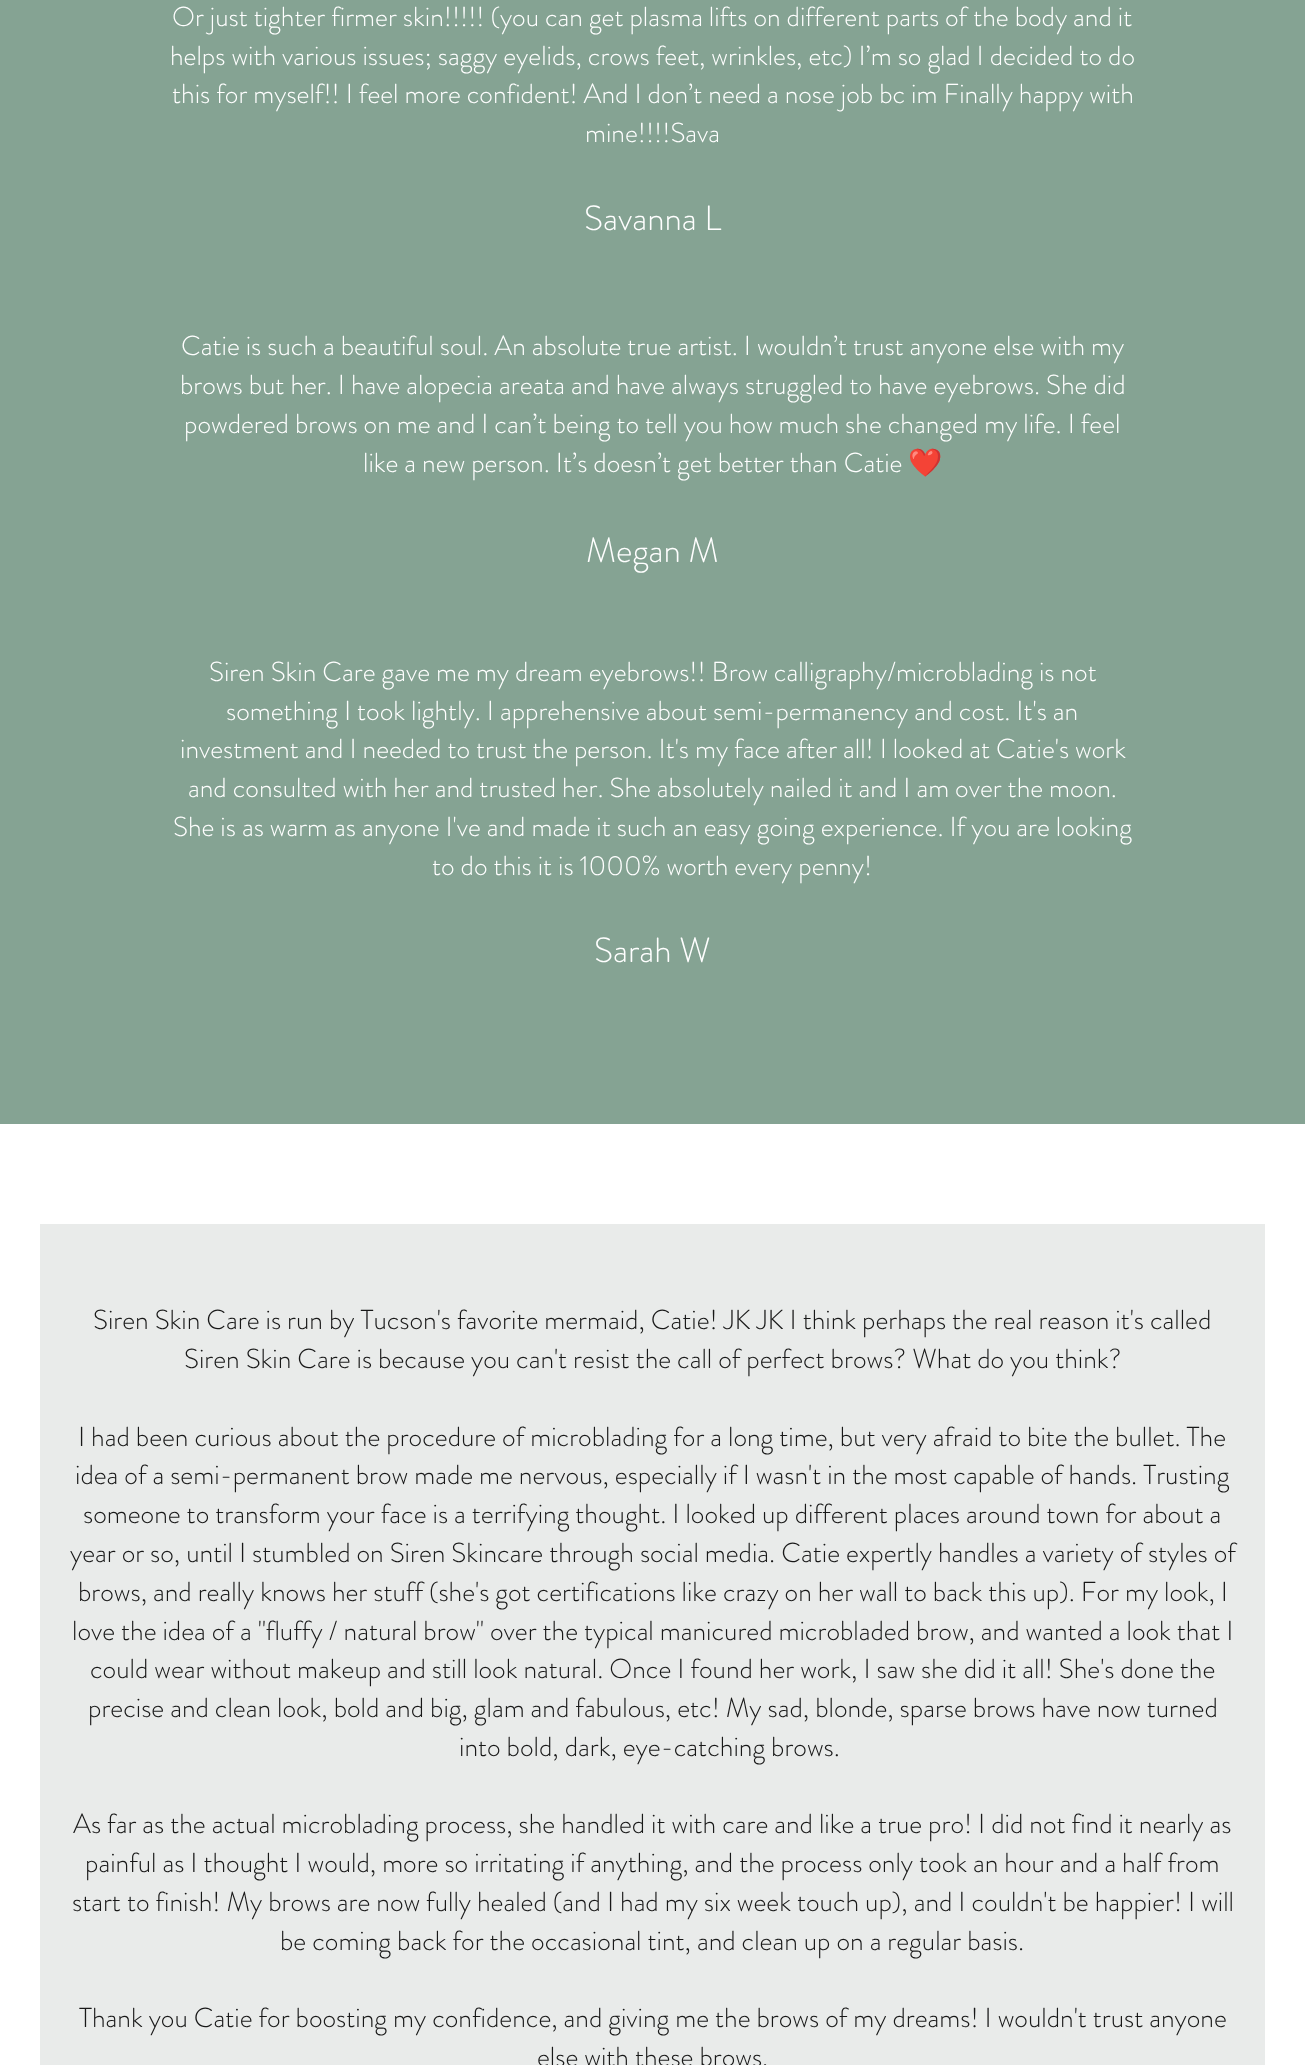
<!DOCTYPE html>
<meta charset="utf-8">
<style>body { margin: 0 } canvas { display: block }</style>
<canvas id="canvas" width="1305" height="2065"></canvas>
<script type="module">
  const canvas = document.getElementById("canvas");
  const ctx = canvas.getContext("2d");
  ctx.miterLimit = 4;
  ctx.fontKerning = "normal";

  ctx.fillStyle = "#ffffff";
  ctx.fillRect(0, 0, 1305, 2065);
  ctx.fillStyle = "#85a393";
  ctx.fillRect(0, 0, 1305, 1124);
  ctx.font = "300 27.5px 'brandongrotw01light'";
  ctx.fillStyle = "#ffffff";
  ctx.fillText("Or just tighter firmer skin!!!!! (you can get plasma lifts on different parts of the body and it", 172, 26);
  ctx.fillText("helps with various issues; saggy eyelids, crows feet, wrinkles, etc) I’m so glad I decided to do", 170, 65);
  ctx.fillText("this for myself!! I feel more confident! And I don’t need a nose job bc im Finally happy with", 172, 103);
  ctx.fillText("mine!!!!Sava", 585, 142);
  ctx.font = "300 35px 'brandongrotw01light'";
  ctx.fillText("Savanna L", 584, 230);
  ctx.font = "300 27.5px 'brandongrotw01light'";
  ctx.fillText("Catie is such a beautiful soul. An absolute true artist. I wouldn’t trust anyone else with my", 181, 355);
  ctx.fillText("brows but her. I have alopecia areata and have always struggled to have eyebrows. She did", 180, 394);
  ctx.fillText("powdered brows on me and I can’t being to tell you how much she changed my life. I feel", 184, 433);
  ctx.fillText("like a new person. It’s doesn’t get better than Catie", 363, 472);
  ctx.font = "27.5px Noto Color Emoji";
  ctx.fillText("❤️", 908, 472);
  ctx.font = "300 35px 'brandongrotw01light'";
  ctx.fillText("Megan M", 586, 562);
  ctx.font = "300 27.5px 'brandongrotw01light'";
  ctx.fillText("Siren Skin Care gave me my dream eyebrows!! Brow calligraphy/microblading is not", 209, 681);
  ctx.fillText("something I took lightly. I apprehensive about semi-permanency and cost. It's an", 226, 720);
  ctx.fillText("investment and I needed to trust the person. It's my face after all! I looked at Catie's work", 180, 758);
  ctx.fillText("and consulted with her and trusted her. She absolutely nailed it and I am over the moon.", 188, 797);
  ctx.fillText("She is as warm as anyone I've and made it such an easy going experience. If you are looking", 173, 836);
  ctx.fillText("to do this it is 1000% worth every penny!", 432, 875);
  ctx.font = "300 35px 'brandongrotw01light'";
  ctx.fillText("Sarah W", 594, 962);
  ctx.fillStyle = "#e9ebea";
  ctx.fillRect(40, 1224, 1225, 841);
  ctx.font = "300 27.5px 'brandongrotw01light'";
  ctx.fillStyle = "#181818";
  ctx.fillText("Siren Skin Care is run by Tucson's favorite mermaid, Catie! JK JK I think perhaps the real reason it's called", 93, 1329);
  ctx.fillText("Siren Skin Care is because you can't resist the call of perfect brows? What do you think?", 184, 1368);
  ctx.fillText("I had been curious about the procedure of microblading for a long time, but very afraid to bite the bullet. The", 78, 1446);
  ctx.fillText("idea of a semi-permanent brow made me nervous, especially if I wasn't in the most capable of hands. Trusting", 75, 1484);
  ctx.fillText("someone to transform your face is a terrifying thought. I looked up different places around town for about a", 83, 1523);
  ctx.fillText("year or so, until I stumbled on Siren Skincare through social media. Catie expertly handles a variety of styles of", 70, 1562);
  ctx.fillText("brows, and really knows her stuff (she's got certifications like crazy on her wall to back this up). For my look, I", 78, 1601);
  ctx.fillText("love the idea of a \"fluffy / natural brow\" over the typical manicured microbladed brow, and wanted a look that I", 72, 1640);
  ctx.fillText("could wear without makeup and still look natural. Once I found her work, I saw she did it all! She's done the", 90, 1678);
  ctx.fillText("precise and clean look, bold and big, glam and fabulous, etc! My sad, blonde, sparse brows have now turned", 88, 1717);
  ctx.fillText("into bold, dark, eye-catching brows.", 459, 1756);
  ctx.fillText("As far as the actual microblading process, she handled it with care and like a true pro! I did not find it nearly as", 73, 1833);
  ctx.fillText("painful as I thought I would, more so irritating if anything, and the process only took an hour and a half from", 85, 1872);
  ctx.fillText("start to finish! My brows are now fully healed (and I had my six week touch up), and I couldn't be happier! I will", 72, 1911);
  ctx.fillText("be coming back for the occasional tint, and clean up on a regular basis.", 280, 1950);
  ctx.fillText("Thank you Catie for boosting my confidence, and giving me the brows of my dreams! I wouldn't trust anyone", 79, 2027);
  ctx.fillText("else with these brows.", 537, 2066);
</script>
